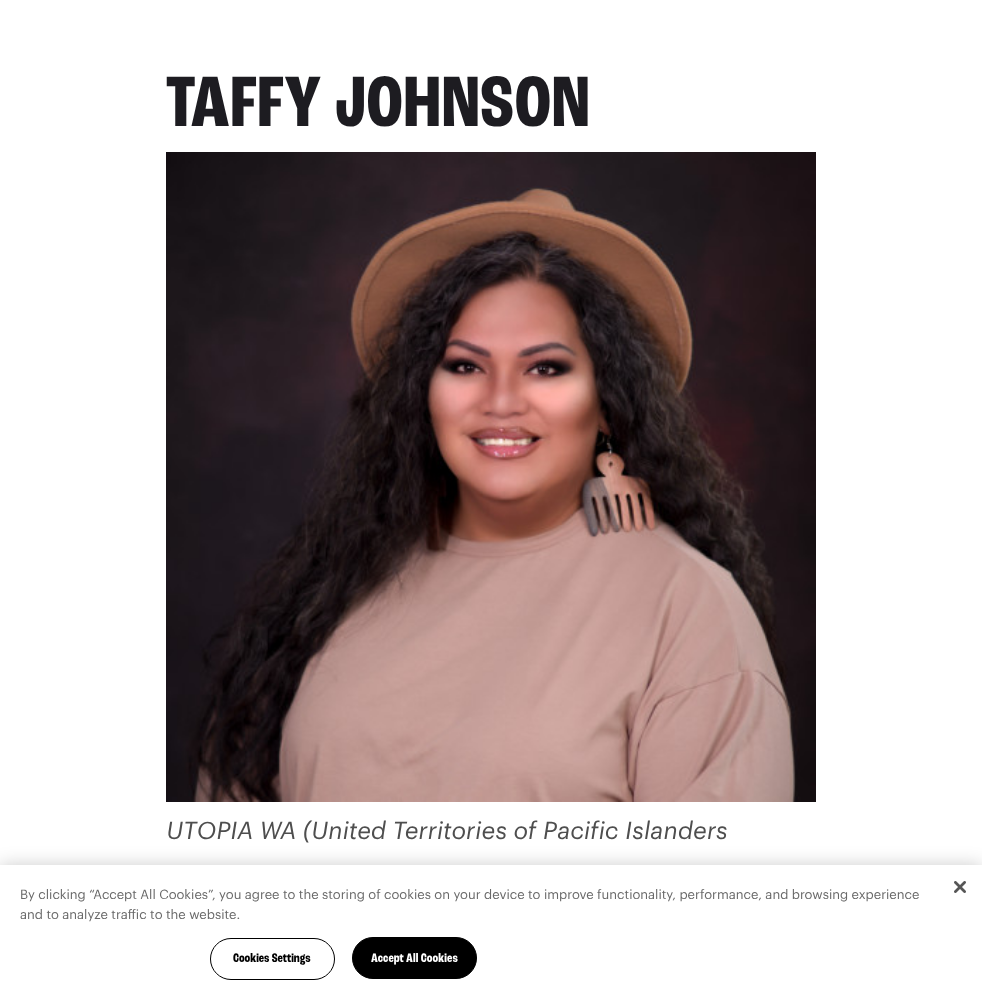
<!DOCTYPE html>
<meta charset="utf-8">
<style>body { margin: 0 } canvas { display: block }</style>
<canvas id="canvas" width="982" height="996"></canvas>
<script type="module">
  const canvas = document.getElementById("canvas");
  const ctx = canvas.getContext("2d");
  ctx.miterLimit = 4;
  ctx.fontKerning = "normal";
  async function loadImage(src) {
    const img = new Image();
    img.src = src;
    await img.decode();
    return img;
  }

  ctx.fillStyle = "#ffffff";
  ctx.fillRect(0, 0, 982, 996);
  ctx.letterSpacing = "0.25px";
  ctx.font = "bold 75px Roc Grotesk";
  ctx.fillStyle = "#1d1c21";
  ctx.fillText("TAFFY JOHNSON", 166, 126);
  ctx.drawImage(await loadImage("img1.png"), 166, 152, 650, 650);
  ctx.font = "italic 24px Graphik";
  ctx.fillStyle = "#4e4e4e";
  ctx.fillText("UTOPIA WA (United Territories of Pacific Islanders", 166, 839);
  ctx.fillStyle = "rgba(0, 0, 0, 0.2)";
  ctx.filter = "blur(9px)";
  ctx.beginPath();
  ctx.rect(0, 865, 982, 131);
  ctx.fill();
  ctx.filter = "none";
  ctx.fillStyle = "#ffffff";
  ctx.fillRect(0, 865, 982, 131);
  ctx.letterSpacing = "0px";
  ctx.font = "13px Graphik";
  ctx.fillStyle = "#696969";
  ctx.fillText("By clicking “Accept All Cookies”, you agree to the storing of cookies on your device to improve functionality, performance, and browsing experience", 20, 899);
  ctx.fillText("and to analyze traffic to the website.", 20, 919);
  ctx.beginPath();
  ctx.roundRect(210.5, 938.5, 124, 41, 20.5);
  ctx.strokeStyle = "#000000";
  ctx.stroke();
  ctx.font = "bold 13px Roc Grotesk";
  ctx.fillStyle = "#000000";
  ctx.fillText("Cookies Settings", 233, 962);
  ctx.beginPath();
  ctx.roundRect(352.5, 937.5, 124, 41, 20.5);
  ctx.fill();
  ctx.stroke();
  ctx.letterSpacing = "0.1px";
  ctx.fillStyle = "#ffffff";
  ctx.fillText("Accept All Cookies", 371, 962);
  ctx.drawImage(await loadImage("img2.png"), 954, 881, 12, 12);
</script>
